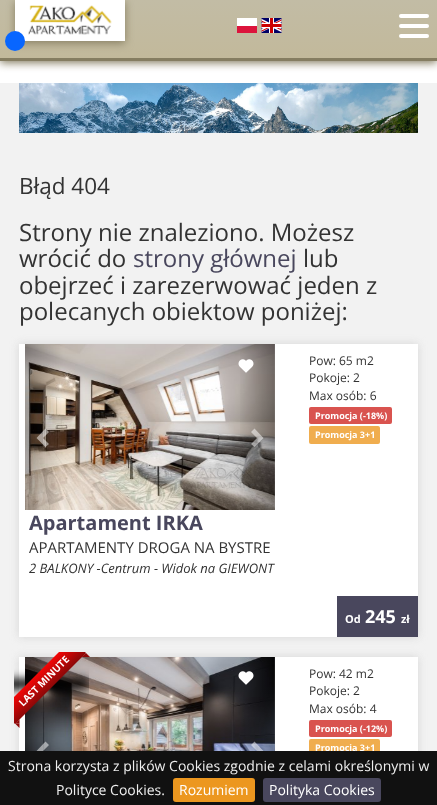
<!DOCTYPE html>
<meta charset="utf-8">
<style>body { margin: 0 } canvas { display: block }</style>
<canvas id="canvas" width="437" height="805"></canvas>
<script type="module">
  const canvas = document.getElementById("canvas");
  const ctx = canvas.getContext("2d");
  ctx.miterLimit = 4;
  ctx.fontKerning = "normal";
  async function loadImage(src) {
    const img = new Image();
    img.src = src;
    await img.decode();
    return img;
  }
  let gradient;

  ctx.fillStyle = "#ffffff";
  ctx.fillRect(0, 0, 437, 805);
  ctx.fillStyle = "#857d61";
  ctx.filter = "blur(4px)";
  ctx.beginPath();
  ctx.rect(0, 2, 437, 61);
  ctx.fill();
  ctx.filter = "none";
  gradient = ctx.createLinearGradient(219, 0, 219, 58);
  gradient.addColorStop(0, "#c2bca5");
  gradient.addColorStop(1, "#c2b99b");
  ctx.fillStyle = gradient;
  ctx.fillRect(0, 0, 437, 58);
  ctx.fillStyle = "#857d61";
  ctx.fillRect(0, 58, 437, 3);
  ctx.filter = "blur(4px)";
  ctx.beginPath();
  ctx.rect(15, 2, 110, 41);
  ctx.fill();
  ctx.filter = "none";
  ctx.fillStyle = "#ffffff";
  ctx.fillRect(15, 0, 110, 41);
  ctx.drawImage(await loadImage("img1.png"), 28, 5, 84, 30);
  ctx.fillRect(237, 18, 20, 8);
  ctx.drawImage(await loadImage("img2.png"), 261, 18, 21, 15);
  ctx.fillStyle = "#dc143c";
  ctx.fillRect(237, 26, 20, 7);
  ctx.fillStyle = "#ffffff";
  ctx.beginPath();
  ctx.roundRect(399, 24, 30, 4, 2);
  ctx.fill();
  ctx.beginPath();
  ctx.roundRect(399, 14, 30, 4, 2);
  ctx.fill();
  ctx.beginPath();
  ctx.roundRect(399, 34, 30, 4, 2);
  ctx.fill();
  ctx.fillStyle = "#0866ff";
  ctx.beginPath();
  ctx.arc(15, 41, 10, 0, Math.PI * 2);
  ctx.fill();
  ctx.fillStyle = "#f2f2f2";
  ctx.fillRect(0, 83, 437, 668);
  ctx.drawImage(await loadImage("img3.png"), 19, 83, 399, 50);
  ctx.font = "22.5px Open Sans";
  ctx.fillStyle = "#333333";
  ctx.fillText("Błąd 404", 19, 194);
  ctx.font = "24px Open Sans";
  ctx.fillText("Strony nie znaleziono. Możesz", 19, 241);
  ctx.fillText("wrócić do", 19, 267);
  ctx.fillStyle = "#49475d";
  ctx.fillText("strony głównej", 133, 267);
  ctx.fillStyle = "#333333";
  ctx.fillText("lub", 303, 267);
  ctx.fillText("obejrzeć i zarezerwować jeden z", 19, 294);
  ctx.fillText("polecanych obiektow poniżej:", 19, 320);
  ctx.fillStyle = "#d5d5d5";
  ctx.filter = "blur(4px)";
  ctx.beginPath();
  ctx.rect(19, 344, 399, 293);
  ctx.fill();
  ctx.filter = "none";
  ctx.fillStyle = "#ffffff";
  ctx.fillRect(19, 344, 399, 293);
  ctx.drawImage(await loadImage("img4.png"), 25, 344, 250, 166);
  ctx.fillStyle = "rgba(255, 255, 255, 0.5)";
  ctx.beginPath();
  ctx.moveTo(49, 432);
  ctx.lineTo(43, 438);
  ctx.lineTo(49, 444);
  ctx.lineTo(45.5, 447);
  ctx.lineTo(36.5, 438);
  ctx.lineTo(45.5, 428.5);
  ctx.closePath();
  ctx.fill();
  gradient = ctx.createLinearGradient(237, 427, 275, 427);
  gradient.addColorStop(0, "rgba(0, 0, 0, 0)");
  gradient.addColorStop(1, "rgba(0, 0, 0, 0.25)");
  ctx.fillStyle = gradient;
  ctx.fillRect(240, 344, 35, 166);
  ctx.fillStyle = "rgba(255, 255, 255, 0.5)";
  ctx.beginPath();
  ctx.moveTo(263.5, 438);
  ctx.lineTo(254.5, 447);
  ctx.lineTo(251, 444);
  ctx.lineTo(257, 438);
  ctx.lineTo(251, 432);
  ctx.lineTo(254.5, 428.5);
  ctx.closePath();
  ctx.fill();
  ctx.font = "12px Open Sans";
  ctx.fillStyle = "#333333";
  ctx.fillText("Pow: 65 m2", 309, 365);
  ctx.fillText("Pokoje: 2", 309, 382);
  ctx.fillText("Max osób: 6", 309, 400);
  ctx.fillStyle = "#d9534f";
  ctx.beginPath();
  ctx.roundRect(309, 407, 83, 17, 2);
  ctx.fill();
  ctx.font = "bold 9px Open Sans";
  ctx.fillStyle = "#ffffff";
  ctx.fillText("Promocja (-18%)", 315, 419);
  ctx.fillStyle = "#f0ad4e";
  ctx.beginPath();
  ctx.roundRect(309, 426, 71, 18, 2);
  ctx.fill();
  ctx.fillStyle = "#ffffff";
  ctx.fillText("Promocja 3+1", 315, 438);
  ctx.font = "bold 20px Open Sans";
  ctx.fillStyle = "#49475d";
  ctx.fillText("Apartament IRKA", 29, 530);
  ctx.font = "15px Open Sans";
  ctx.fillStyle = "#333333";
  ctx.fillText("APARTAMENTY DROGA NA BYSTRE", 29, 553);
  ctx.font = "italic 13px Open Sans";
  ctx.fillText("2 BALKONY -Centrum - Widok na GIEWONT", 29, 573);
  ctx.drawImage(await loadImage("img5.png"), 238, 359, 16, 14);
  ctx.fillStyle = "#49475d";
  ctx.fillRect(337, 596, 81, 41);
  ctx.font = "bold 11px Open Sans";
  ctx.fillStyle = "#ffffff";
  ctx.fillText("Od", 345, 623);
  ctx.font = "bold 18px Open Sans";
  ctx.fillText("245", 365, 623);
  ctx.font = "bold 11px Open Sans";
  ctx.fillText("zł", 401, 623);
  ctx.fillStyle = "#d5d5d5";
  ctx.filter = "blur(4px)";
  ctx.beginPath();
  ctx.rect(19, 657, 399, 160);
  ctx.fill();
  ctx.filter = "none";
  ctx.fillStyle = "#ffffff";
  ctx.fillRect(19, 657, 399, 94);
  ctx.drawImage(await loadImage("img6.png"), 25, 657, 250, 94);
  ctx.save();
  ctx.beginPath();
  ctx.rect(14, 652, 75, 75);
  ctx.clip();
  ctx.fillStyle = "#000000";
  ctx.filter = "blur(5px)";
  ctx.beginPath();
  ctx.rect(-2, 679, 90, 10);
  ctx.fill();
  ctx.filter = "none";
  ctx.restore();
  ctx.save();
  ctx.beginPath();
  ctx.rect(14, 652, 75, 75);
  ctx.clip();
  gradient = ctx.createLinearGradient(36, 674, 50, 688);
  gradient.addColorStop(0, "#f70505");
  gradient.addColorStop(1, "#8f0808");
  ctx.fillStyle = gradient;
  ctx.beginPath();
  ctx.moveTo(1, 710);
  ctx.lineTo(72, 639);
  ctx.lineTo(86, 653);
  ctx.lineTo(15, 724);
  ctx.closePath();
  ctx.fill();
  ctx.restore();
  ctx.font = "bold 10px Open Sans";
  ctx.save();
  ctx.translate(23, 707);
  ctx.rotate(-45 * Math.PI / 180);
  ctx.fillText("LAST MINUTE", 0, 0);
  ctx.restore();
  ctx.fillStyle = "#8f0808";
  ctx.beginPath();
  ctx.moveTo(81.5, 657);
  ctx.lineTo(86, 653);
  ctx.lineTo(86, 657);
  ctx.closePath();
  ctx.moveTo(86, 653);
  ctx.lineTo(90, 657);
  ctx.lineTo(86, 657);
  ctx.closePath();
  ctx.fill();
  ctx.beginPath();
  ctx.moveTo(15, 723.5);
  ctx.lineTo(19.5, 719.5);
  ctx.lineTo(19.5, 723.5);
  ctx.closePath();
  ctx.fill();
  ctx.beginPath();
  ctx.moveTo(19.5, 728);
  ctx.lineTo(15, 723.5);
  ctx.lineTo(19.5, 723.5);
  ctx.closePath();
  ctx.fill();
  ctx.fillStyle = "rgba(255, 255, 255, 0.5)";
  ctx.beginPath();
  ctx.moveTo(49, 745);
  ctx.lineTo(43, 751);
  ctx.lineTo(49, 757);
  ctx.lineTo(45.5, 760);
  ctx.lineTo(36.5, 751);
  ctx.lineTo(45.5, 741.5);
  ctx.closePath();
  ctx.fill();
  gradient = ctx.createLinearGradient(237, 740, 275, 740);
  gradient.addColorStop(0, "rgba(0, 0, 0, 0)");
  gradient.addColorStop(1, "rgba(0, 0, 0, 0.25)");
  ctx.fillStyle = gradient;
  ctx.fillRect(240, 657, 35, 94);
  ctx.fillStyle = "rgba(255, 255, 255, 0.5)";
  ctx.beginPath();
  ctx.moveTo(263.5, 751);
  ctx.lineTo(254.5, 760);
  ctx.lineTo(251, 757);
  ctx.lineTo(257, 751);
  ctx.lineTo(251, 745);
  ctx.lineTo(254.5, 741.5);
  ctx.closePath();
  ctx.fill();
  ctx.font = "12px Open Sans";
  ctx.fillStyle = "#333333";
  ctx.fillText("Pow: 42 m2", 309, 678);
  ctx.fillText("Pokoje: 2", 309, 695);
  ctx.fillText("Max osób: 4", 309, 713);
  ctx.fillStyle = "#d9534f";
  ctx.beginPath();
  ctx.roundRect(309, 720, 83, 17, 2);
  ctx.fill();
  ctx.font = "bold 9px Open Sans";
  ctx.fillStyle = "#ffffff";
  ctx.fillText("Promocja (-12%)", 315, 732);
  ctx.fillStyle = "#f0ad4e";
  ctx.beginPath();
  ctx.roundRect(309, 739, 71, 17, 2);
  ctx.fill();
  ctx.fillStyle = "#ffffff";
  ctx.fillText("Promocja 3+1", 315, 751);
  ctx.drawImage(await loadImage("img7.png"), 238, 671, 16, 14);
  ctx.fillStyle = "#111111";
  ctx.fillRect(0, 751, 437, 54);
  ctx.font = "14px Open Sans";
  ctx.fillStyle = "#eeeeee";
  ctx.fillText("Strona korzysta z plików Cookies zgodnie z celami określonymi w", 8, 771);
  ctx.fillText("Polityce Cookies.", 56, 795);
  ctx.fillStyle = "#ec971f";
  ctx.beginPath();
  ctx.roundRect(173, 778, 82, 24, 3);
  ctx.fill();
  ctx.fillStyle = "#ffffff";
  ctx.fillText("Rozumiem", 179, 795);
  ctx.fillStyle = "#49475d";
  ctx.beginPath();
  ctx.roundRect(263, 778, 118, 24, 3);
  ctx.fill();
  ctx.fillStyle = "#ffffff";
  ctx.fillText("Polityka Cookies", 269, 795);
</script>
